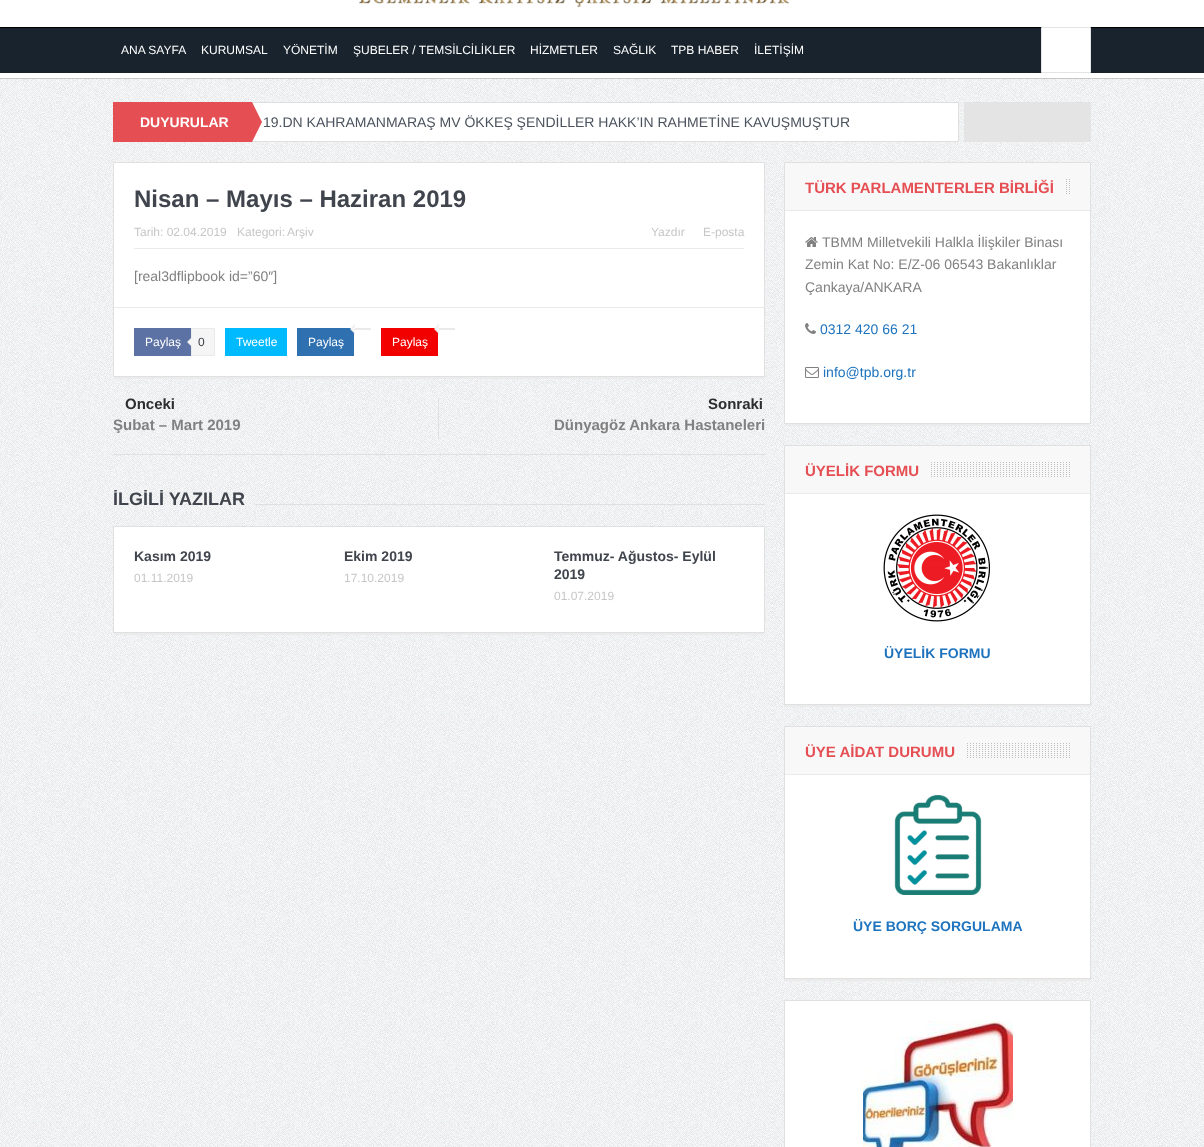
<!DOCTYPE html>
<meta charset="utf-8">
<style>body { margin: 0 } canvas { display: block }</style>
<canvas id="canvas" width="1204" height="1147"></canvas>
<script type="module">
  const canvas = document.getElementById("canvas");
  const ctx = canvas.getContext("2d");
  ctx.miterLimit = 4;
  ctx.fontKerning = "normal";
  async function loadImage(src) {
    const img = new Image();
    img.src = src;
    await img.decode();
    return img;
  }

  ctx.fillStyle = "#ffffff";
  ctx.fillRect(0, 0, 1204, 1147);
  ctx.drawImage(await loadImage("img1.png"), 0, 79, 1204, 1068);
  ctx.drawImage(await loadImage("img2.png"), 359, 0, 430, 7);
  ctx.fillStyle = "#000000";
  ctx.fillRect(0, 27, 1204, 1);
  ctx.fillStyle = "#c8c8c8";
  ctx.fillRect(0, 78, 1204, 1);
  ctx.fillStyle = "#19232d";
  ctx.fillRect(0, 28, 1204, 45);
  ctx.font = "12px Liberation Sans";
  ctx.fillStyle = "#ffffff";
  ctx.fillText("ANA SAYFA", 121, 54);
  ctx.fillText("KURUMSAL", 201, 54);
  ctx.fillText("YÖNETİM", 283, 54);
  ctx.fillText("ŞUBELER / TEMSİLCİLİKLER", 353, 54);
  ctx.fillText("HİZMETLER", 530, 54);
  ctx.fillText("SAĞLIK", 613, 54);
  ctx.fillText("TPB HABER", 671, 54);
  ctx.fillText("İLETİŞİM", 754, 54);
  ctx.beginPath();
  ctx.rect(1041.5, 27.5, 49, 45);
  ctx.fill();
  ctx.strokeStyle = "#e4e4e4";
  ctx.stroke();
  ctx.fillStyle = "#e54e53";
  ctx.fillRect(113, 102, 139, 40);
  ctx.font = "bold 14px Liberation Sans";
  ctx.fillStyle = "#ffffff";
  ctx.fillText("DUYURULAR", 140, 127);
  ctx.beginPath();
  ctx.rect(252.5, 102.5, 706, 39);
  ctx.fill();
  ctx.strokeStyle = "#dfdfdf";
  ctx.stroke();
  ctx.fillStyle = "#e54e53";
  ctx.beginPath();
  ctx.moveTo(252, 142);
  ctx.lineTo(252, 102);
  ctx.lineTo(262, 122);
  ctx.closePath();
  ctx.fill();
  ctx.font = "14px Liberation Sans";
  ctx.fillStyle = "#4a525d";
  ctx.fillText("19.DN KAHRAMANMARAŞ MV ÖKKEŞ ŞENDİLLER HAKK’IN RAHMETİNE KAVUŞMUŞTUR", 263, 127);
  ctx.fillStyle = "#e4e4e4";
  ctx.fillRect(964, 102, 127, 40);
  ctx.fillStyle = "#ffffff";
  ctx.beginPath();
  ctx.rect(113.5, 162.5, 651, 214);
  ctx.fill();
  ctx.strokeStyle = "#e0e0e0";
  ctx.stroke();
  ctx.font = "bold 24px Liberation Sans";
  ctx.fillStyle = "#40454d";
  ctx.fillText("Nisan – Mayıs – Haziran 2019", 134, 207);
  ctx.fillStyle = "#eaeaea";
  ctx.fillRect(134, 248, 610, 1);
  ctx.font = "12px Liberation Sans";
  ctx.fillStyle = "#c6c6c6";
  ctx.fillText("Tarih: 02.04.2019", 134, 236);
  ctx.fillText("Kategori:", 237, 236);
  ctx.fillText("Arşiv", 287, 236);
  ctx.fillText("Yazdır", 651, 236);
  ctx.fillText("E-posta", 703, 236);
  ctx.font = "14px Liberation Sans";
  ctx.fillStyle = "#818181";
  ctx.fillText("[real3dflipbook id=”60″]", 134, 281);
  ctx.fillStyle = "#eaeaea";
  ctx.fillRect(114, 307, 650, 1);
  ctx.fillStyle = "#5d72a4";
  ctx.fillRect(134, 328, 57, 28);
  ctx.font = "12px Liberation Sans";
  ctx.fillStyle = "#ffffff";
  ctx.fillText("Paylaş", 145, 346);
  ctx.fillStyle = "#f5f5f5";
  ctx.beginPath();
  ctx.rect(191.5, 328.5, 23, 27);
  ctx.fill();
  ctx.strokeStyle = "#eaeaea";
  ctx.stroke();
  ctx.fillStyle = "#eaeaea";
  ctx.beginPath();
  ctx.moveTo(192, 337);
  ctx.lineTo(192, 347);
  ctx.lineTo(187, 342);
  ctx.closePath();
  ctx.fill();
  ctx.fillStyle = "#373c43";
  ctx.fillText("0", 198, 346);
  ctx.fillStyle = "#f5f5f5";
  ctx.beginPath();
  ctx.moveTo(192, 338);
  ctx.lineTo(192, 346);
  ctx.lineTo(188, 342);
  ctx.closePath();
  ctx.fill();
  ctx.fillStyle = "#00baff";
  ctx.fillRect(225, 328, 62, 28);
  ctx.fillStyle = "#ffffff";
  ctx.fillText("Tweetle", 236, 346);
  ctx.fillStyle = "#eaeaea";
  ctx.fillRect(354, 328, 17, 2);
  ctx.fillStyle = "#2f70b0";
  ctx.fillRect(297, 328, 57, 28);
  ctx.fillStyle = "#eaeaea";
  ctx.beginPath();
  ctx.moveTo(355, 324);
  ctx.lineTo(355, 334);
  ctx.lineTo(350, 329);
  ctx.closePath();
  ctx.fill();
  ctx.fillStyle = "#f5f5f5";
  ctx.beginPath();
  ctx.moveTo(355, 325);
  ctx.lineTo(355, 333);
  ctx.lineTo(351, 329);
  ctx.closePath();
  ctx.fill();
  ctx.fillStyle = "#ffffff";
  ctx.fillText("Paylaş", 308, 346);
  ctx.fillStyle = "#eaeaea";
  ctx.fillRect(438, 328, 17, 2);
  ctx.fillStyle = "#f20000";
  ctx.fillRect(381, 328, 57, 28);
  ctx.fillStyle = "#eaeaea";
  ctx.beginPath();
  ctx.moveTo(439, 324);
  ctx.lineTo(439, 334);
  ctx.lineTo(434, 329);
  ctx.closePath();
  ctx.fill();
  ctx.fillStyle = "#f5f5f5";
  ctx.beginPath();
  ctx.moveTo(439, 325);
  ctx.lineTo(439, 333);
  ctx.lineTo(435, 329);
  ctx.closePath();
  ctx.fill();
  ctx.fillStyle = "#ffffff";
  ctx.fillText("Paylaş", 392, 346);
  ctx.fillStyle = "#ebebeb";
  ctx.fillRect(114, 377, 650, 2);
  ctx.fillStyle = "#e0e0e0";
  ctx.fillRect(113, 454, 652, 1);
  ctx.save();
  ctx.beginPath();
  ctx.rect(113, 398, 652, 41);
  ctx.clip();
  ctx.font = "bold 15px Liberation Sans";
  ctx.fillStyle = "#2d2d2d";
  ctx.fillText("Önceki", 125, 409);
  ctx.restore();
  ctx.font = "bold 15px Liberation Sans";
  ctx.fillStyle = "#818181";
  ctx.fillText("Şubat – Mart 2019", 113, 430);
  ctx.fillStyle = "#e0e0e0";
  ctx.fillRect(438, 398, 1, 41);
  ctx.fillStyle = "#2d2d2d";
  ctx.fillText("Sonraki", 708, 409);
  ctx.fillStyle = "#818181";
  ctx.fillText("Dünyagöz Ankara Hastaneleri", 554, 430);
  ctx.save();
  ctx.beginPath();
  ctx.rect(113, 490, 652, 18);
  ctx.clip();
  ctx.font = "bold 18px Liberation Sans";
  ctx.fillStyle = "#40454d";
  ctx.fillText("İLGİLİ YAZILAR", 113, 505);
  ctx.restore();
  ctx.fillStyle = "#e0e0e0";
  ctx.fillRect(255, 504, 510, 1);
  ctx.fillStyle = "#ffffff";
  ctx.beginPath();
  ctx.rect(113.5, 526.5, 651, 106);
  ctx.fill();
  ctx.strokeStyle = "#e0e0e0";
  ctx.stroke();
  ctx.font = "bold 14px Liberation Sans";
  ctx.fillStyle = "#40454d";
  ctx.fillText("Kasım 2019", 134, 561);
  ctx.font = "12px Liberation Sans";
  ctx.fillStyle = "#c6c6c6";
  ctx.fillText("01.11.2019", 134, 582);
  ctx.font = "bold 14px Liberation Sans";
  ctx.fillStyle = "#40454d";
  ctx.fillText("Ekim 2019", 344, 561);
  ctx.font = "12px Liberation Sans";
  ctx.fillStyle = "#c6c6c6";
  ctx.fillText("17.10.2019", 344, 582);
  ctx.font = "bold 14px Liberation Sans";
  ctx.fillStyle = "#40454d";
  ctx.fillText("Temmuz- Ağustos- Eylül", 554, 561);
  ctx.fillText("2019", 554, 579);
  ctx.font = "12px Liberation Sans";
  ctx.fillStyle = "#c6c6c6";
  ctx.fillText("01.07.2019", 554, 600);
  ctx.fillStyle = "#ebebeb";
  ctx.fillRect(114, 633, 650, 2);
  ctx.fillStyle = "#ffffff";
  ctx.fillRect(785, 211, 305, 212);
  ctx.strokeRect(784.5, 162.5, 306, 261);
  ctx.fillStyle = "#f8f8f8";
  ctx.fillRect(785, 163, 305, 47);
  ctx.fillStyle = "#eaeaea";
  ctx.fillRect(785, 210, 305, 1);
  ctx.drawImage(await loadImage("img3.png"), 1066, 179, 4, 15);
  ctx.font = "bold 15px Liberation Sans";
  ctx.fillStyle = "#e54e53";
  ctx.fillText("TÜRK PARLAMENTERLER BİRLİĞİ", 805, 193);
  ctx.drawImage(await loadImage("img4.png"), 805, 237, 13, 10);
  ctx.font = "14px Liberation Sans";
  ctx.fillStyle = "#818181";
  ctx.fillText("TBMM Milletvekili Halkla İlişkiler Binası", 822, 247);
  ctx.fillText("Zemin Kat No: E/Z-06 06543 Bakanlıklar", 805, 269);
  ctx.fillText("Çankaya/ANKARA", 805, 292);
  ctx.drawImage(await loadImage("img5.png"), 805, 323, 11, 11);
  ctx.fillStyle = "#1e73be";
  ctx.fillText("0312 420 66 21", 820, 334);
  ctx.drawImage(await loadImage("img6.png"), 805, 367, 14, 11);
  ctx.fillText("info@tpb.org.tr", 823, 377);
  ctx.fillStyle = "#ebebeb";
  ctx.fillRect(785, 424, 305, 2);
  ctx.fillStyle = "#ffffff";
  ctx.fillRect(785, 494, 305, 210);
  ctx.strokeRect(784.5, 445.5, 306, 259);
  ctx.fillStyle = "#f8f8f8";
  ctx.fillRect(785, 446, 305, 47);
  ctx.fillStyle = "#eaeaea";
  ctx.fillRect(785, 493, 305, 1);
  ctx.drawImage(await loadImage("img7.png"), 931, 462, 139, 15);
  ctx.font = "bold 15px Liberation Sans";
  ctx.fillStyle = "#e54e53";
  ctx.fillText("ÜYELİK FORMU", 805, 476);
  ctx.drawImage(await loadImage("img8.png"), 883, 514, 107, 108);
  ctx.font = "bold 14px Liberation Sans";
  ctx.fillStyle = "#1e73be";
  ctx.fillText("ÜYELİK FORMU", 884, 658);
  ctx.fillStyle = "#ebebeb";
  ctx.fillRect(785, 705, 305, 2);
  ctx.fillStyle = "#ffffff";
  ctx.fillRect(785, 775, 305, 203);
  ctx.strokeRect(784.5, 726.5, 306, 252);
  ctx.fillStyle = "#f8f8f8";
  ctx.fillRect(785, 727, 305, 47);
  ctx.fillStyle = "#eaeaea";
  ctx.fillRect(785, 774, 305, 1);
  ctx.drawImage(await loadImage("img9.png"), 967, 743, 103, 15);
  ctx.font = "bold 15px Liberation Sans";
  ctx.fillStyle = "#e54e53";
  ctx.fillText("ÜYE AİDAT DURUMU", 805, 757);
  ctx.drawImage(await loadImage("img10.png"), 894, 795, 88, 100);
  ctx.font = "bold 14px Liberation Sans";
  ctx.fillStyle = "#1e73be";
  ctx.fillText("ÜYE BORÇ SORGULAMA", 853, 931);
  ctx.fillStyle = "#ebebeb";
  ctx.fillRect(785, 979, 305, 2);
  ctx.fillStyle = "#ffffff";
  ctx.beginPath();
  ctx.rect(784.5, 1000.5, 306, 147);
  ctx.fill();
  ctx.stroke();
  ctx.drawImage(await loadImage("img11.png"), 863, 1021, 150, 126);
</script>
